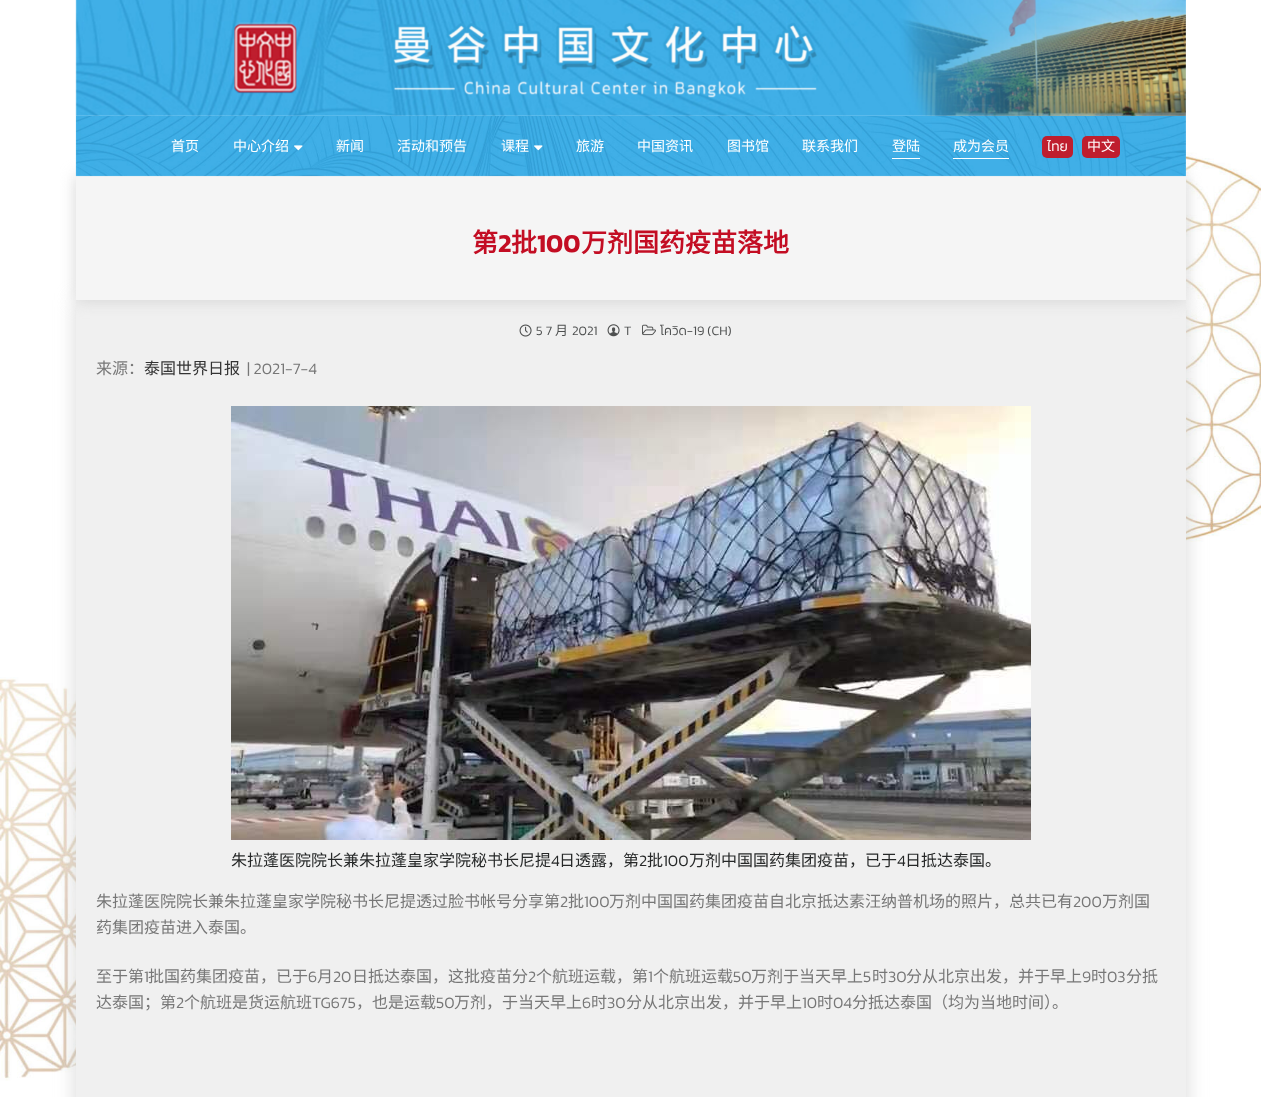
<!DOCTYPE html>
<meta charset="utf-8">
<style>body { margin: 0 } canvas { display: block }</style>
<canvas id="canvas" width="1261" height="1097"></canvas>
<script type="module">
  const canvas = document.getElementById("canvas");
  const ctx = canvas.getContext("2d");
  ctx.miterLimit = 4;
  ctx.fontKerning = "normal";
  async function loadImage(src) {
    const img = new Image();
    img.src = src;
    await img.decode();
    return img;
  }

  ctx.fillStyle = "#ffffff";
  ctx.fillRect(0, 0, 1261, 1097);
  ctx.drawImage(await loadImage("img1.png"), 0, 152, 1261, 929);
  ctx.fillStyle = "rgba(204, 204, 204, 0.77)";
  ctx.filter = "blur(10px)";
  ctx.beginPath();
  ctx.rect(76, 300, 1110, 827);
  ctx.fill();
  ctx.filter = "none";
  ctx.fillStyle = "#f0f0f0";
  ctx.fillRect(76, 300, 1110, 797);
  ctx.fillStyle = "rgba(204, 204, 204, 0.85)";
  ctx.filter = "blur(8px)";
  ctx.beginPath();
  ctx.rect(76, 176, 1110, 124);
  ctx.fill();
  ctx.filter = "none";
  ctx.fillStyle = "#f5f5f5";
  ctx.fillRect(76, 176, 1110, 124);
  ctx.drawImage(await loadImage("img3.png"), 75, 115, 1111, 62);
  ctx.drawImage(await loadImage("img2.png"), 75, 0, 1111, 116);
  ctx.font = "14px Noto Sans CJK SC";
  ctx.fillStyle = "#ffffff";
  ctx.fillText("首页", 171, 151);
  ctx.fillText("中心介绍", 233, 151);
  ctx.drawImage(await loadImage("img4.png"), 294, 145, 9, 6);
  ctx.fillText("新闻", 336, 151);
  ctx.fillText("活动和预告", 397, 151);
  ctx.fillText("课程", 501, 151);
  ctx.drawImage(await loadImage("img5.png"), 534, 145, 9, 6);
  ctx.fillText("旅游", 576, 151);
  ctx.fillText("中国资讯", 637, 151);
  ctx.fillText("图书馆", 727, 151);
  ctx.fillText("联系我们", 802, 151);
  ctx.fillRect(892, 158, 28, 1);
  ctx.fillText("登陆", 892, 151);
  ctx.fillRect(953, 158, 56, 1);
  ctx.fillText("成为会员", 953, 151);
  ctx.fillStyle = "#bf1e2e";
  ctx.beginPath();
  ctx.roundRect(1042, 136, 31, 22, 5);
  ctx.fill();
  ctx.font = "300 14px Kanit";
  ctx.fillStyle = "#ffffff";
  ctx.fillText("ไทย", 1047, 151);
  ctx.fillStyle = "#bf1e2e";
  ctx.beginPath();
  ctx.roundRect(1082, 136, 38, 22, 5);
  ctx.fill();
  ctx.font = "14px Noto Sans CJK SC";
  ctx.fillStyle = "#ffffff";
  ctx.fillText("中文", 1087, 151);
  ctx.font = "bold 26px Noto Sans CJK SC";
  ctx.fillStyle = "#c30d23";
  ctx.fillText("第", 472, 252);
  ctx.font = "600 26px Kanit";
  ctx.fillText("2", 498, 252);
  ctx.font = "bold 26px Noto Sans CJK SC";
  ctx.fillText("批", 511, 252);
  ctx.font = "600 26px Kanit";
  ctx.fillText("100", 537, 252);
  ctx.font = "bold 26px Noto Sans CJK SC";
  ctx.fillText("万剂国药疫苗落地", 581, 252);
  ctx.drawImage(await loadImage("img6.png"), 519, 324, 13, 13);
  ctx.font = "300 13px Kanit";
  ctx.fillStyle = "#4e5050";
  ctx.fillText("5 7", 536, 335);
  ctx.font = "13px Noto Sans CJK SC";
  ctx.fillText("月", 555, 335);
  ctx.font = "300 13px Kanit";
  ctx.fillText("2021", 572, 335);
  ctx.drawImage(await loadImage("img7.png"), 607, 324, 13, 13);
  ctx.fillText("T", 624, 335);
  ctx.drawImage(await loadImage("img8.png"), 642, 324, 14, 12);
  ctx.fillText("โควิด-19 (CH)", 660, 335);
  ctx.font = "16px Noto Sans CJK SC";
  ctx.fillStyle = "#777777";
  ctx.fillText("来源：", 96, 374);
  ctx.fillStyle = "#333333";
  ctx.fillText("泰国世界日报", 144, 374);
  ctx.font = "300 16px Kanit";
  ctx.fillStyle = "#777777";
  ctx.fillText("| 2021-7-4", 247, 374);
  ctx.drawImage(await loadImage("img9.png"), 231, 406, 800, 434);
  ctx.font = "16px Noto Sans CJK SC";
  ctx.fillStyle = "#262828";
  ctx.fillText("朱拉蓬医院院长兼朱拉蓬皇家学院秘书长尼提", 231, 866);
  ctx.font = "300 16px Kanit";
  ctx.fillText("4", 551, 866);
  ctx.font = "16px Noto Sans CJK SC";
  ctx.fillText("日透露，第", 559, 866);
  ctx.font = "300 16px Kanit";
  ctx.fillText("2", 639, 866);
  ctx.font = "16px Noto Sans CJK SC";
  ctx.fillText("批", 647, 866);
  ctx.font = "300 16px Kanit";
  ctx.fillText("100", 663, 866);
  ctx.font = "16px Noto Sans CJK SC";
  ctx.fillText("万剂中国国药集团疫苗，已于", 689, 866);
  ctx.font = "300 16px Kanit";
  ctx.fillText("4", 897, 866);
  ctx.font = "16px Noto Sans CJK SC";
  ctx.fillText("日抵达泰国。", 905, 866);
  ctx.fillStyle = "#777777";
  ctx.fillText("朱拉蓬医院院长兼朱拉蓬皇家学院秘书长尼提透过脸书帐号分享第", 96, 907);
  ctx.font = "300 16px Kanit";
  ctx.fillText("2", 560, 907);
  ctx.font = "16px Noto Sans CJK SC";
  ctx.fillText("批", 568, 907);
  ctx.font = "300 16px Kanit";
  ctx.fillText("100", 584, 907);
  ctx.font = "16px Noto Sans CJK SC";
  ctx.fillText("万剂中国国药集团疫苗自北京抵达素汪纳普机场的照片，总共已有", 609, 907);
  ctx.font = "300 16px Kanit";
  ctx.fillText("200", 1073, 907);
  ctx.font = "16px Noto Sans CJK SC";
  ctx.fillText("万剂国", 1102, 907);
  ctx.fillText("药集团疫苗进入泰国。", 96, 933);
  ctx.fillText("至于第", 96, 982);
  ctx.font = "300 16px Kanit";
  ctx.fillText("1", 144, 982);
  ctx.font = "16px Noto Sans CJK SC";
  ctx.fillText("批国药集团疫苗，已于", 148, 982);
  ctx.font = "300 16px Kanit";
  ctx.fillText("6", 308, 982);
  ctx.font = "16px Noto Sans CJK SC";
  ctx.fillText("月", 317, 982);
  ctx.font = "300 16px Kanit";
  ctx.fillText("20", 333, 982);
  ctx.font = "16px Noto Sans CJK SC";
  ctx.fillText("日抵达泰国，这批疫苗分", 352, 982);
  ctx.font = "300 16px Kanit";
  ctx.fillText("2", 528, 982);
  ctx.font = "16px Noto Sans CJK SC";
  ctx.fillText("个航班运载，第", 536, 982);
  ctx.font = "300 16px Kanit";
  ctx.fillText("1", 648, 982);
  ctx.font = "16px Noto Sans CJK SC";
  ctx.fillText("个航班运载", 653, 982);
  ctx.font = "300 16px Kanit";
  ctx.fillText("50", 733, 982);
  ctx.font = "16px Noto Sans CJK SC";
  ctx.fillText("万剂于当天早上", 751, 982);
  ctx.font = "300 16px Kanit";
  ctx.fillText("5", 863, 982);
  ctx.font = "16px Noto Sans CJK SC";
  ctx.fillText("时", 872, 982);
  ctx.font = "300 16px Kanit";
  ctx.fillText("30", 888, 982);
  ctx.font = "16px Noto Sans CJK SC";
  ctx.fillText("分从北京出发，并于早上", 906, 982);
  ctx.font = "300 16px Kanit";
  ctx.fillText("9", 1082, 982);
  ctx.font = "16px Noto Sans CJK SC";
  ctx.fillText("时", 1091, 982);
  ctx.font = "300 16px Kanit";
  ctx.fillText("03", 1107, 982);
  ctx.font = "16px Noto Sans CJK SC";
  ctx.fillText("分抵", 1126, 982);
  ctx.fillText("达泰国；第", 96, 1008);
  ctx.font = "300 16px Kanit";
  ctx.fillText("2", 176, 1008);
  ctx.font = "16px Noto Sans CJK SC";
  ctx.fillText("个航班是货运航班", 184, 1008);
  ctx.font = "300 16px Kanit";
  ctx.fillText("TG675", 312, 1008);
  ctx.font = "16px Noto Sans CJK SC";
  ctx.fillText("，也是运载", 356, 1008);
  ctx.font = "300 16px Kanit";
  ctx.fillText("50", 436, 1008);
  ctx.font = "16px Noto Sans CJK SC";
  ctx.fillText("万剂，于当天早上", 454, 1008);
  ctx.font = "300 16px Kanit";
  ctx.fillText("6", 582, 1008);
  ctx.font = "16px Noto Sans CJK SC";
  ctx.fillText("时", 591, 1008);
  ctx.font = "300 16px Kanit";
  ctx.fillText("30", 607, 1008);
  ctx.font = "16px Noto Sans CJK SC";
  ctx.fillText("分从北京出发，并于早上", 626, 1008);
  ctx.font = "300 16px Kanit";
  ctx.fillText("10", 802, 1008);
  ctx.font = "16px Noto Sans CJK SC";
  ctx.fillText("时", 817, 1008);
  ctx.font = "300 16px Kanit";
  ctx.fillText("04", 833, 1008);
  ctx.font = "16px Noto Sans CJK SC";
  ctx.fillText("分抵达泰国（均为当地时间）。", 852, 1008);
</script>
